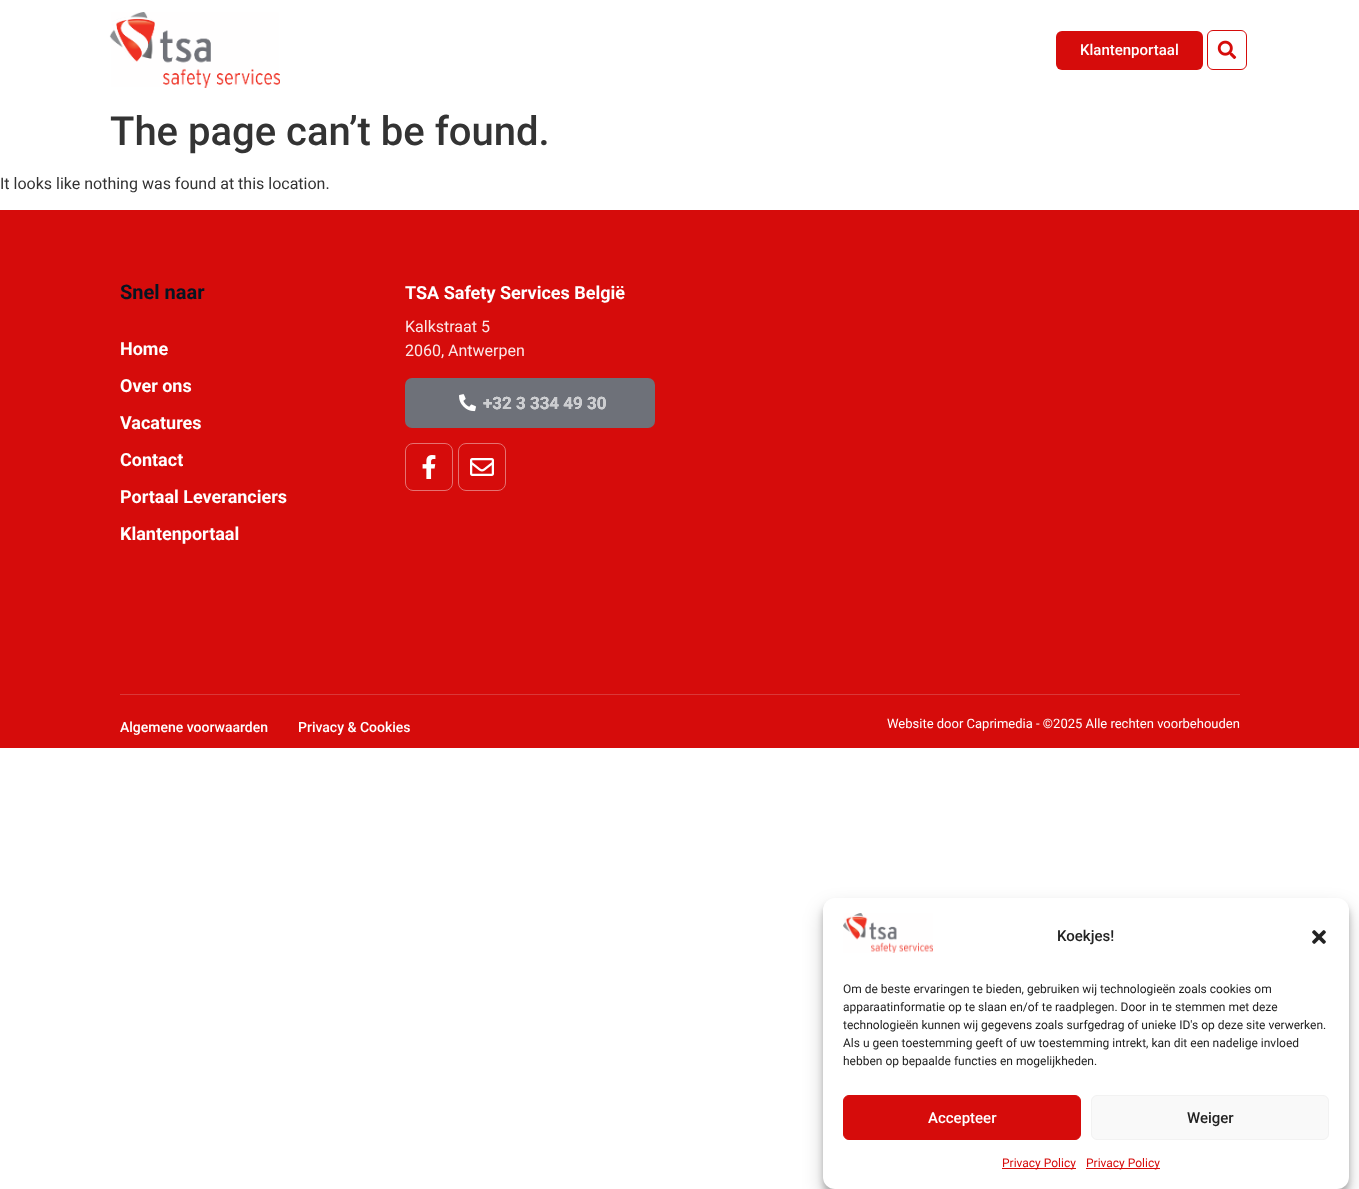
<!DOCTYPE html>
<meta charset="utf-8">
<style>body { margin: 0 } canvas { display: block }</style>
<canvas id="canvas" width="1359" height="1189"></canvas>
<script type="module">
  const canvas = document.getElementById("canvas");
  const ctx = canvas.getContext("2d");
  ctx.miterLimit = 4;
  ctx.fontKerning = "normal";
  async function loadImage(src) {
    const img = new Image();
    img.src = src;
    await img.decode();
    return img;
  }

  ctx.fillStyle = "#ffffff";
  ctx.fillRect(0, 0, 1359, 1189);
  ctx.drawImage(await loadImage("img1.png"), 109, 12, 171, 76);
  ctx.fillStyle = "#d60c0b";
  ctx.beginPath();
  ctx.roundRect(1056, 31, 147, 39, 6);
  ctx.fill();
  ctx.font = "500 15px Roboto";
  ctx.fillStyle = "#ffffff";
  ctx.fillText("Klantenportaal", 1080, 55);
  ctx.beginPath();
  ctx.roundRect(1207.5, 30.5, 39, 39, 5.5);
  ctx.strokeStyle = "#d60c0b";
  ctx.stroke();
  ctx.drawImage(await loadImage("img2.png"), 1217, 40, 20, 19);
  ctx.font = "500 40px Roboto";
  ctx.fillStyle = "#333333";
  ctx.fillText("The page can’t be found.", 110, 145);
  ctx.font = "16px Roboto";
  ctx.fillText("It looks like nothing was found at this location.", 0, 189);
  ctx.fillStyle = "#d60c0b";
  ctx.fillRect(0, 210, 1359, 538);
  ctx.font = "bold 20px Roboto";
  ctx.fillStyle = "#061522";
  ctx.fillText("Snel naar", 120, 299);
  ctx.font = "bold 18px Roboto";
  ctx.fillStyle = "#ffffff";
  ctx.fillText("Home", 120, 355);
  ctx.fillText("Over ons", 120, 392);
  ctx.fillText("Vacatures", 120, 429);
  ctx.fillText("Contact", 120, 466);
  ctx.fillText("Portaal Leveranciers", 120, 503);
  ctx.fillText("Klantenportaal", 120, 540);
  ctx.fillText("TSA Safety Services België", 405, 299);
  ctx.font = "16px Roboto";
  ctx.fillStyle = "#fbe7e7";
  ctx.fillText("Kalkstraat 5", 405, 332);
  ctx.fillText("2060, Antwerpen", 405, 356);
  ctx.fillStyle = "#6e7179";
  ctx.beginPath();
  ctx.roundRect(405, 378, 250, 50, 7);
  ctx.fill();
  ctx.drawImage(await loadImage("img3.png"), 459, 394, 17, 18);
  ctx.font = "600 17px Roboto";
  ctx.fillStyle = "#ffffff";
  ctx.fillText("+32 3 334 49 30", 483, 409);
  ctx.fillStyle = "#cccdd0";
  ctx.fillText("+32 3 334 49 30", 483, 409);
  ctx.beginPath();
  ctx.roundRect(405.5, 443.5, 47, 47, 7.5);
  ctx.strokeStyle = "#e57271";
  ctx.stroke();
  ctx.drawImage(await loadImage("img4.png"), 422, 455, 14, 24);
  ctx.beginPath();
  ctx.roundRect(458.5, 443.5, 47, 47, 7.5);
  ctx.stroke();
  ctx.drawImage(await loadImage("img5.png"), 470, 458, 24, 18);
  ctx.fillStyle = "#d93939";
  ctx.fillRect(120, 694, 1120, 1);
  ctx.font = "500 14px Roboto";
  ctx.fillStyle = "#ffffff";
  ctx.fillText("Algemene voorwaarden", 120, 732);
  ctx.fillText("Privacy & Cookies", 298, 732);
  ctx.font = "13px Roboto";
  ctx.fillText("Website door Caprimedia - ©2025 Alle rechten voorbehouden", 887, 728);
  ctx.fillStyle = "rgba(0, 0, 0, 0.23)";
  ctx.filter = "blur(3px)";
  ctx.beginPath();
  ctx.roundRect(823, 904, 526, 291, 12);
  ctx.fill();
  ctx.filter = "none";
  ctx.fillStyle = "rgba(0, 0, 0, 0.19)";
  ctx.filter = "blur(10px)";
  ctx.beginPath();
  ctx.roundRect(823, 908, 526, 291, 12);
  ctx.fill();
  ctx.filter = "none";
  ctx.fillStyle = "#ffffff";
  ctx.beginPath();
  ctx.roundRect(823, 898, 526, 291, 12);
  ctx.fill();
  ctx.drawImage(await loadImage("img6.png"), 843, 913, 90, 40);
  ctx.font = "500 15px Roboto";
  ctx.fillStyle = "#222222";
  ctx.fillText("Koekjes!", 1057, 941);
  ctx.drawImage(await loadImage("img7.png"), 1312, 930, 14, 14);
  ctx.font = "12px Roboto";
  ctx.fillText("Om de beste ervaringen te bieden, gebruiken wij technologieën zoals cookies om", 843, 993);
  ctx.fillText("apparaatinformatie op te slaan en/of te raadplegen. Door in te stemmen met deze", 843, 1011);
  ctx.fillText("technologieën kunnen wij gegevens zoals surfgedrag of unieke ID's op deze site verwerken.", 843, 1029);
  ctx.fillText("Als u geen toestemming geeft of uw toestemming intrekt, kan dit een nadelige invloed", 843, 1047);
  ctx.fillText("hebben op bepaalde functies en mogelijkheden.", 843, 1065);
  ctx.fillStyle = "#d60c0b";
  ctx.beginPath();
  ctx.roundRect(843.5, 1095.5, 237, 44, 5.5);
  ctx.fill();
  ctx.strokeStyle = "#d60c0b";
  ctx.stroke();
  ctx.font = "500 15px Roboto";
  ctx.fillStyle = "#ffffff";
  ctx.fillText("Accepteer", 928, 1123);
  ctx.fillStyle = "#f9f9f9";
  ctx.beginPath();
  ctx.roundRect(1091.5, 1095.5, 237, 44, 5.5);
  ctx.fill();
  ctx.strokeStyle = "#f2f2f2";
  ctx.stroke();
  ctx.fillStyle = "#222222";
  ctx.fillText("Weiger", 1187, 1123);
  ctx.fillStyle = "#d60c0b";
  ctx.fillRect(1002, 1168, 74, 1);
  ctx.font = "12px Roboto";
  ctx.fillText("Privacy Policy", 1002, 1167);
  ctx.fillRect(1086, 1168, 74, 1);
  ctx.fillText("Privacy Policy", 1086, 1167);
</script>
